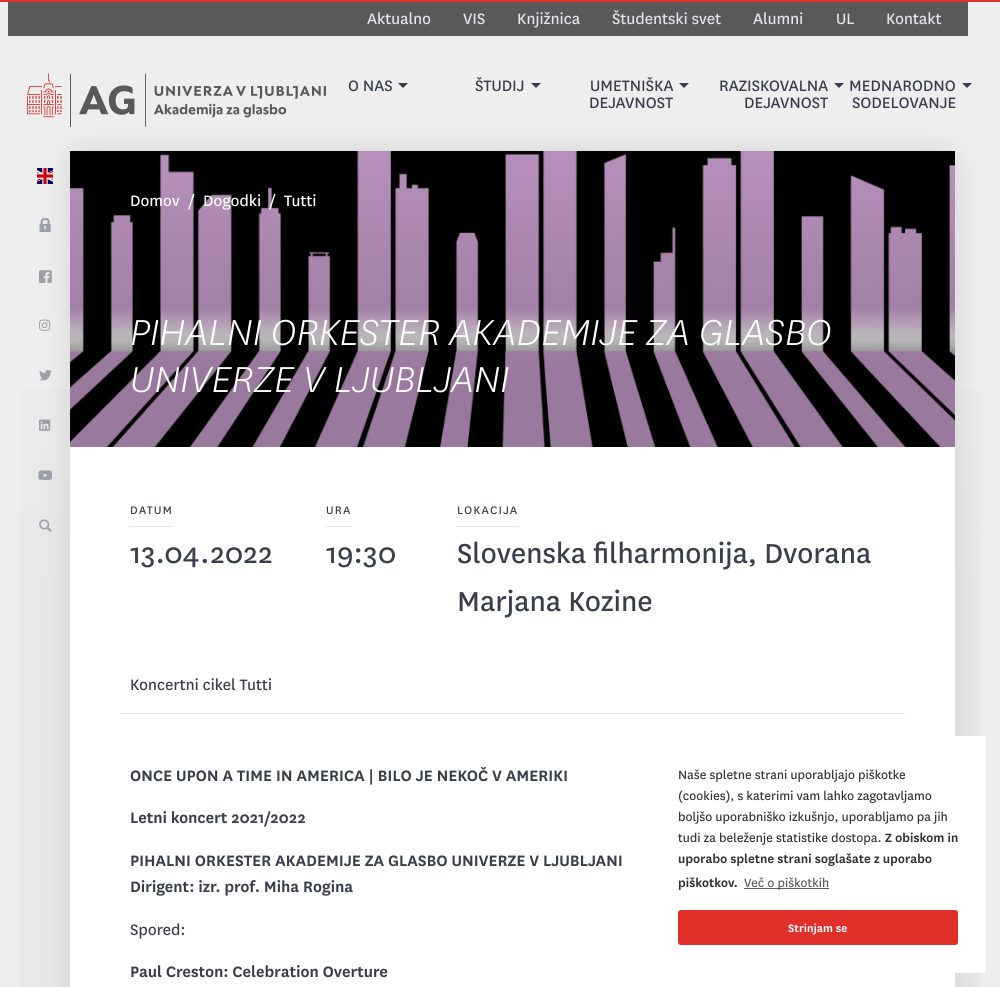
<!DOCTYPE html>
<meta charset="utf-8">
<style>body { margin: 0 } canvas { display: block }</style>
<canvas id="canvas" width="1000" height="987"></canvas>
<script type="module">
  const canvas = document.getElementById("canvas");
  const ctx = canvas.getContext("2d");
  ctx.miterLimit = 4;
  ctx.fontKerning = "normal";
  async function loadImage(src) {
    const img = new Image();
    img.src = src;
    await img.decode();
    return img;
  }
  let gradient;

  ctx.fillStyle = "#eeeeee";
  ctx.fillRect(0, 0, 1000, 987);
  ctx.fillStyle = "#e1302a";
  ctx.fillRect(0, 0, 1000, 2);
  ctx.fillStyle = "#595959";
  ctx.fillRect(8, 2, 960, 34);
  ctx.drawImage(await loadImage("img1.png"), 367, 12, 64, 13);
  ctx.drawImage(await loadImage("img2.png"), 463, 13, 22, 12);
  ctx.drawImage(await loadImage("img3.png"), 518, 12, 62, 16);
  ctx.drawImage(await loadImage("img4.png"), 612, 10, 109, 15);
  ctx.drawImage(await loadImage("img5.png"), 753, 12, 50, 13);
  ctx.drawImage(await loadImage("img6.png"), 837, 13, 17, 12);
  ctx.drawImage(await loadImage("img7.png"), 887, 12, 55, 13);
  gradient = ctx.createLinearGradient(500, 151, 500, 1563);
  gradient.addColorStop(0, "#f0f0f0");
  gradient.addColorStop(0.3, "#e8e8e8");
  ctx.fillStyle = gradient;
  ctx.fillRect(20, 389, 960, 598);
  ctx.fillStyle = "rgba(0, 0, 0, 0.1)";
  ctx.filter = "blur(15px)";
  ctx.beginPath();
  ctx.rect(70, 151, 885, 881);
  ctx.fill();
  ctx.filter = "none";
  ctx.drawImage(await loadImage("img8.png"), 27, 73, 299, 54);
  ctx.drawImage(await loadImage("img9.png"), 348, 80, 44, 12);
  ctx.fillStyle = "#383e4b";
  ctx.beginPath();
  ctx.moveTo(398, 83);
  ctx.lineTo(408, 83);
  ctx.lineTo(403, 88);
  ctx.closePath();
  ctx.fill();
  ctx.drawImage(await loadImage("img10.png"), 475, 77, 49, 15);
  ctx.beginPath();
  ctx.moveTo(531, 83);
  ctx.lineTo(541, 83);
  ctx.lineTo(536, 88);
  ctx.closePath();
  ctx.fill();
  ctx.drawImage(await loadImage("img11.png"), 591, 77, 83, 15);
  ctx.beginPath();
  ctx.moveTo(679, 83);
  ctx.lineTo(689, 83);
  ctx.lineTo(684, 88);
  ctx.closePath();
  ctx.fill();
  ctx.drawImage(await loadImage("img12.png"), 590, 97, 83, 12);
  ctx.drawImage(await loadImage("img13.png"), 720, 80, 108, 12);
  ctx.beginPath();
  ctx.moveTo(834, 83);
  ctx.lineTo(844, 83);
  ctx.lineTo(839, 88);
  ctx.closePath();
  ctx.fill();
  ctx.drawImage(await loadImage("img12.png"), 745, 97, 83, 12);
  ctx.drawImage(await loadImage("img14.png"), 850, 80, 105, 12);
  ctx.beginPath();
  ctx.moveTo(962, 83);
  ctx.lineTo(972, 83);
  ctx.lineTo(967, 88);
  ctx.closePath();
  ctx.fill();
  ctx.drawImage(await loadImage("img15.png"), 852, 97, 104, 12);
  ctx.drawImage(await loadImage("img16.png"), 37, 168, 16, 16);
  ctx.drawImage(await loadImage("img17.png"), 39, 218, 12, 14);
  ctx.drawImage(await loadImage("img18.png"), 39, 270, 13, 13);
  ctx.drawImage(await loadImage("img19.png"), 39, 319, 12, 12);
  ctx.drawImage(await loadImage("img20.png"), 39, 370, 13, 11);
  ctx.drawImage(await loadImage("img21.png"), 39, 419, 12, 12);
  ctx.drawImage(await loadImage("img22.png"), 38, 470, 14, 10);
  ctx.drawImage(await loadImage("img23.png"), 39, 519, 13, 13);
  ctx.fillStyle = "#ffffff";
  ctx.fillRect(70, 447, 885, 540);
  ctx.drawImage(await loadImage("img24.png"), 70, 151, 885, 296);
  ctx.drawImage(await loadImage("img25.png"), 131, 195, 49, 12);
  ctx.beginPath();
  ctx.moveTo(193, 194);
  ctx.lineTo(194.5, 194);
  ctx.lineTo(189.5, 209.5);
  ctx.lineTo(188, 209.5);
  ctx.closePath();
  ctx.fill();
  ctx.drawImage(await loadImage("img26.png"), 204, 194, 57, 16);
  ctx.beginPath();
  ctx.moveTo(274, 194);
  ctx.lineTo(275.5, 194);
  ctx.lineTo(270.5, 209.5);
  ctx.lineTo(269, 209.5);
  ctx.closePath();
  ctx.fill();
  ctx.drawImage(await loadImage("img27.png"), 284, 194, 32, 13);
  ctx.drawImage(await loadImage("img28.png"), 131, 319, 700, 27);
  ctx.drawImage(await loadImage("img29.png"), 132, 367, 377, 26);
  ctx.fillStyle = "#e4e6eb";
  ctx.fillRect(130, 526, 43, 1);
  ctx.drawImage(await loadImage("img30.png"), 131, 506, 40, 9);
  ctx.drawImage(await loadImage("img31.png"), 130, 547, 142, 21);
  ctx.fillRect(326, 526, 26, 1);
  ctx.drawImage(await loadImage("img32.png"), 326, 506, 25, 9);
  ctx.drawImage(await loadImage("img33.png"), 326, 547, 69, 21);
  ctx.fillRect(457, 526, 61, 1);
  ctx.drawImage(await loadImage("img34.png"), 458, 506, 59, 9);
  ctx.drawImage(await loadImage("img35.png"), 457, 541, 414, 29);
  ctx.drawImage(await loadImage("img36.png"), 459, 589, 193, 29);
  ctx.fillRect(120, 713, 785, 1);
  ctx.drawImage(await loadImage("img37.png"), 131, 678, 140, 13);
  ctx.drawImage(await loadImage("img38.png"), 130, 767, 437, 18);
  ctx.drawImage(await loadImage("img39.png"), 131, 811, 174, 16);
  ctx.drawImage(await loadImage("img40.png"), 131, 855, 491, 12);
  ctx.drawImage(await loadImage("img41.png"), 131, 880, 222, 16);
  ctx.drawImage(await loadImage("img42.png"), 130, 923, 55, 16);
  ctx.drawImage(await loadImage("img43.png"), 131, 965, 257, 13);
  ctx.fillStyle = "#ffffff";
  ctx.fillRect(955, 736, 31, 237);
  ctx.drawImage(await loadImage("img44.png"), 679, 769, 227, 13);
  ctx.drawImage(await loadImage("img45.png"), 678, 790, 254, 13);
  ctx.drawImage(await loadImage("img46.png"), 679, 811, 268, 13);
  ctx.drawImage(await loadImage("img47.png"), 678, 832, 203, 13);
  ctx.drawImage(await loadImage("img48.png"), 885, 832, 73, 11);
  ctx.drawImage(await loadImage("img49.png"), 678, 853, 254, 13);
  ctx.drawImage(await loadImage("img50.png"), 678, 877, 59, 13);
  ctx.fillStyle = "#5c5c5c";
  ctx.fillRect(744, 888, 85, 1);
  ctx.drawImage(await loadImage("img51.png"), 744, 877, 85, 13);
  ctx.fillStyle = "#e1302a";
  ctx.beginPath();
  ctx.roundRect(678, 910, 280, 35, 3);
  ctx.fill();
  ctx.drawImage(await loadImage("img52.png"), 788, 923, 59, 12);
</script>
